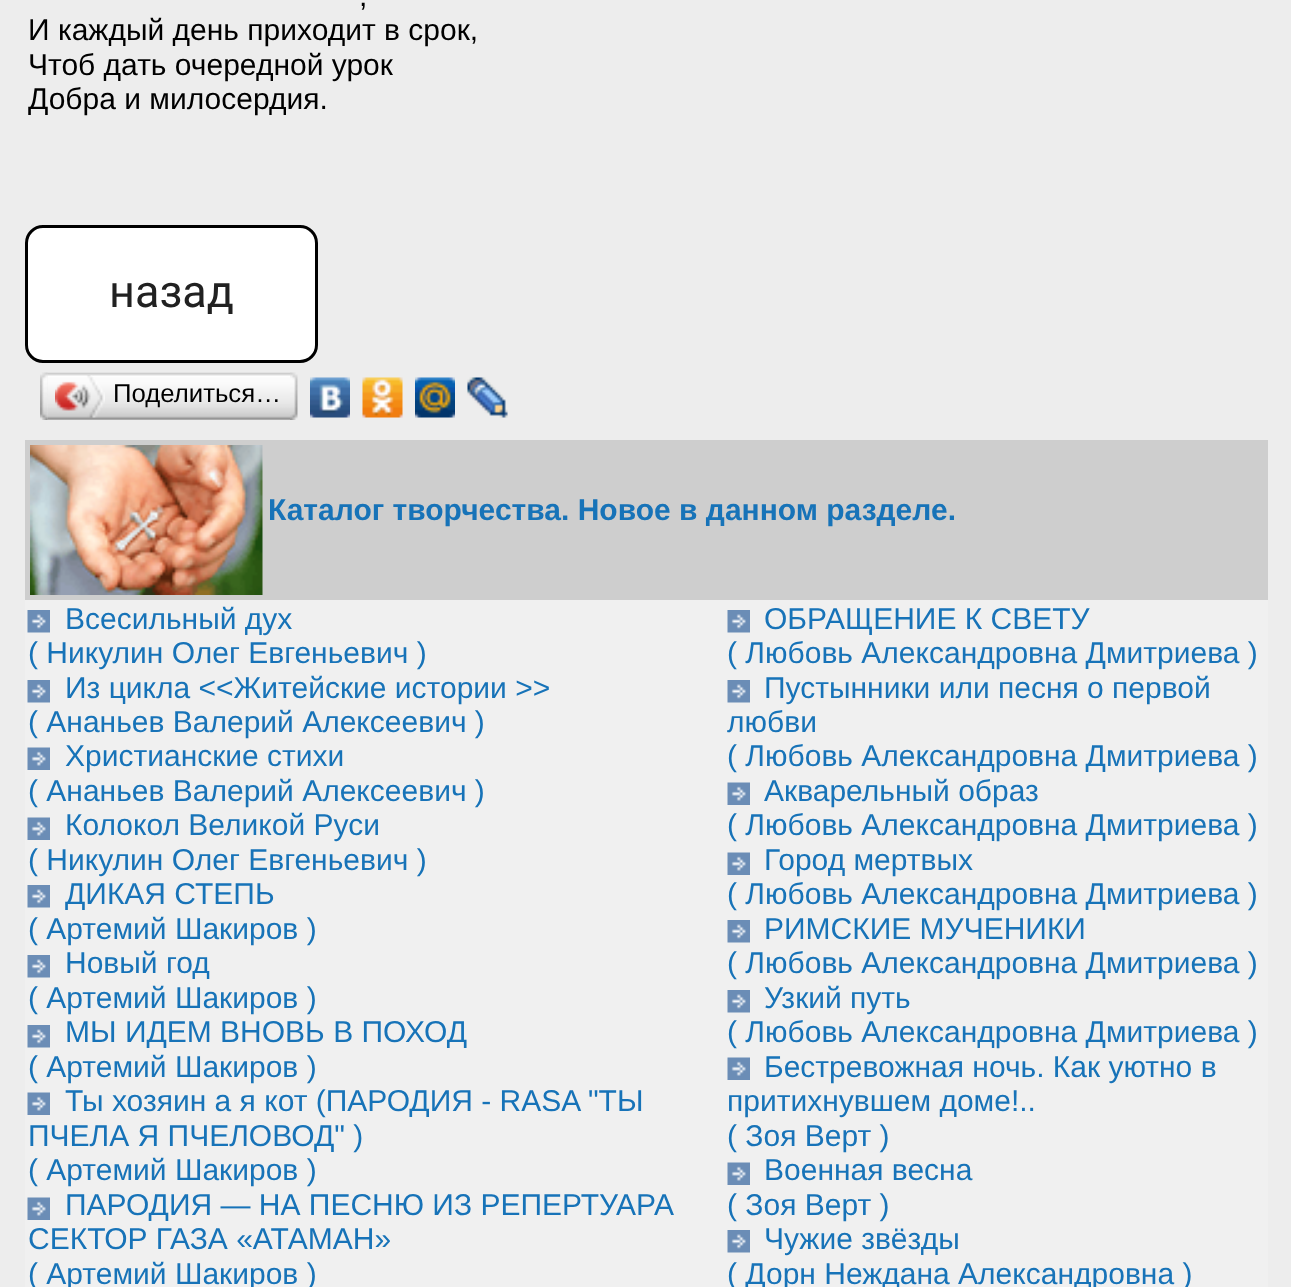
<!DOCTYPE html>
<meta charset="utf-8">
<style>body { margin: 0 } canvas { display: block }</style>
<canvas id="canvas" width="1291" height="1287"></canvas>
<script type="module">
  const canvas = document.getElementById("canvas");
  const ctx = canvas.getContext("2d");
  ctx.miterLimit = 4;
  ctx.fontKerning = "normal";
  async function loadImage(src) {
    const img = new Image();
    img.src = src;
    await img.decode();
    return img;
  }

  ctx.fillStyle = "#ededed";
  ctx.fillRect(0, 0, 1291, 1287);
  ctx.font = "30px Liberation Sans";
  ctx.fillStyle = "#000000";
  ctx.fillText(",", 359, 6);
  ctx.fillText("И каждый день приходит в срок,", 28, 40);
  ctx.fillText("Чтоб дать очередной урок", 28, 75);
  ctx.fillText("Добра и милосердия.", 28, 109);
  ctx.fillStyle = "#ffffff";
  ctx.beginPath();
  ctx.roundRect(26.5, 226.5, 290, 135, 16.5);
  ctx.fill();
  ctx.strokeStyle = "#000000";
  ctx.lineWidth = 3;
  ctx.stroke();
  ctx.font = "45px Roboto";
  ctx.fillStyle = "#212121";
  ctx.fillText("назад", 109, 307);
  ctx.drawImage(await loadImage("img1.png"), 47, 372, 243, 48);
  ctx.drawImage(await loadImage("img2.png"), 40, 372, 8, 48);
  ctx.drawImage(await loadImage("img3.png"), 55, 375, 50, 43);
  ctx.font = "25.75px Liberation Sans";
  ctx.fillStyle = "#000000";
  ctx.fillText("Поделиться…", 113, 402);
  ctx.drawImage(await loadImage("img4.png"), 290, 372, 8, 48);
  ctx.drawImage(await loadImage("img5.png"), 310, 377, 40, 41);
  ctx.drawImage(await loadImage("img6.png"), 362, 377, 41, 41);
  ctx.drawImage(await loadImage("img7.png"), 415, 377, 40, 41);
  ctx.drawImage(await loadImage("img8.png"), 467, 377, 41, 41);
  ctx.fillStyle = "#f0f0f0";
  ctx.fillRect(25, 600, 1243, 687);
  ctx.fillStyle = "#cecece";
  ctx.fillRect(25, 440, 1243, 160);
  ctx.drawImage(await loadImage("img9.png"), 30, 445, 233, 150);
  ctx.font = "bold 30px Liberation Sans";
  ctx.fillStyle = "#1773b8";
  ctx.fillText("Каталог творчества. Новое в данном разделе.", 268, 520);
  ctx.drawImage(await loadImage("img10.png"), 27, 610, 23, 23);
  ctx.font = "30px Liberation Sans";
  ctx.fillText("Всесильный дух", 65, 629);
  ctx.fillText("( Никулин Олег Евгеньевич )", 28, 663);
  ctx.drawImage(await loadImage("img10.png"), 27, 680, 23, 23);
  ctx.fillText("Из цикла <<Житейские истории >>", 65, 698);
  ctx.fillText("( Ананьев Валерий Алексеевич )", 28, 732);
  ctx.drawImage(await loadImage("img11.png"), 27, 747, 23, 23);
  ctx.fillText("Христианские стихи", 65, 766);
  ctx.fillText("( Ананьев Валерий Алексеевич )", 28, 801);
  ctx.drawImage(await loadImage("img11.png"), 27, 817, 23, 23);
  ctx.fillText("Колокол Великой Руси", 65, 835);
  ctx.fillText("( Никулин Олег Евгеньевич )", 28, 870);
  ctx.drawImage(await loadImage("img10.png"), 27, 885, 23, 23);
  ctx.fillText("ДИКАЯ СТЕПЬ", 65, 904);
  ctx.fillText("( Артемий Шакиров )", 28, 939);
  ctx.drawImage(await loadImage("img10.png"), 27, 955, 23, 23);
  ctx.fillText("Новый год", 65, 973);
  ctx.fillText("( Артемий Шакиров )", 28, 1008);
  ctx.drawImage(await loadImage("img10.png"), 27, 1025, 23, 23);
  ctx.fillText("МЫ ИДЕМ ВНОВЬ В ПОХОД", 65, 1042);
  ctx.fillText("( Артемий Шакиров )", 28, 1077);
  ctx.drawImage(await loadImage("img11.png"), 27, 1092, 23, 23);
  ctx.fillText("Ты хозяин а я кот (ПАРОДИЯ - RASA \"ТЫ", 65, 1111);
  ctx.fillText("ПЧЕЛА Я ПЧЕЛОВОД\" )", 28, 1146);
  ctx.fillText("( Артемий Шакиров )", 28, 1180);
  ctx.drawImage(await loadImage("img11.png"), 27, 1197, 23, 23);
  ctx.fillText("ПАРОДИЯ — НА ПЕСНЮ ИЗ РЕПЕРТУАРА", 65, 1215);
  ctx.fillText("СЕКТОР ГАЗА «АТАМАН»", 28, 1249);
  ctx.fillText("( Артемий Шакиров )", 28, 1284);
  ctx.drawImage(await loadImage("img10.png"), 727, 610, 23, 23);
  ctx.fillText("ОБРАЩЕНИЕ К СВЕТУ", 764, 629);
  ctx.fillText("( Любовь Александровна Дмитриева )", 727, 663);
  ctx.drawImage(await loadImage("img10.png"), 727, 680, 23, 23);
  ctx.fillText("Пустынники или песня о первой", 764, 698);
  ctx.fillText("любви", 727, 732);
  ctx.fillText("( Любовь Александровна Дмитриева )", 727, 766);
  ctx.drawImage(await loadImage("img11.png"), 727, 782, 23, 23);
  ctx.fillText("Акварельный образ", 764, 801);
  ctx.fillText("( Любовь Александровна Дмитриева )", 727, 835);
  ctx.drawImage(await loadImage("img11.png"), 727, 852, 23, 23);
  ctx.fillText("Город мертвых", 764, 870);
  ctx.fillText("( Любовь Александровна Дмитриева )", 727, 904);
  ctx.drawImage(await loadImage("img10.png"), 727, 920, 23, 23);
  ctx.fillText("РИМСКИЕ МУЧЕНИКИ", 764, 939);
  ctx.fillText("( Любовь Александровна Дмитриева )", 727, 973);
  ctx.drawImage(await loadImage("img10.png"), 727, 990, 23, 23);
  ctx.fillText("Узкий путь", 764, 1008);
  ctx.fillText("( Любовь Александровна Дмитриева )", 727, 1042);
  ctx.drawImage(await loadImage("img11.png"), 727, 1057, 23, 23);
  ctx.fillText("Бестревожная ночь. Как уютно в", 764, 1077);
  ctx.fillText("притихнувшем доме!..", 727, 1111);
  ctx.fillText("( Зоя Верт )", 727, 1146);
  ctx.drawImage(await loadImage("img11.png"), 727, 1162, 23, 23);
  ctx.fillText("Военная весна", 764, 1180);
  ctx.fillText("( Зоя Верт )", 727, 1215);
  ctx.drawImage(await loadImage("img10.png"), 727, 1230, 23, 23);
  ctx.fillText("Чужие звёзды", 764, 1249);
  ctx.fillText("( Дорн Неждана Александровна )", 727, 1284);
</script>
